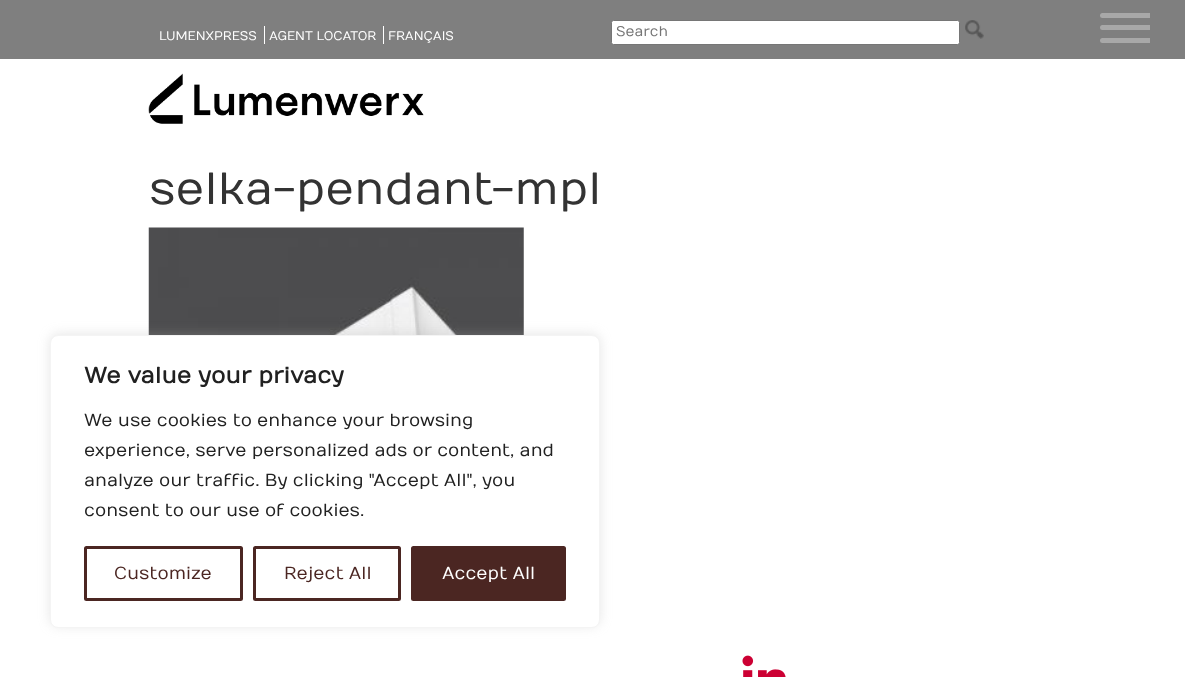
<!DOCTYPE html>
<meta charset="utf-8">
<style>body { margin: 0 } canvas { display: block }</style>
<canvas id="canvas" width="1185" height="677"></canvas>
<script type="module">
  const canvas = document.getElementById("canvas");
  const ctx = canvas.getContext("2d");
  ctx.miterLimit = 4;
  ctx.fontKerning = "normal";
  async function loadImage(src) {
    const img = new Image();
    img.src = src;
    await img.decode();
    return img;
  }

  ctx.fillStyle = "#ffffff";
  ctx.fillRect(0, 0, 1185, 677);
  ctx.fillStyle = "#7f7f7f";
  ctx.fillRect(0, 0, 1185, 59);
  ctx.font = "12.5px Numans";
  ctx.fillStyle = "#ffffff";
  ctx.fillText("LUMENXPRESS", 159, 40);
  ctx.fillRect(264, 26, 1, 18);
  ctx.fillText("AGENT LOCATOR", 269, 40);
  ctx.fillRect(383, 26, 1, 18);
  ctx.fillText("FRANÇAIS", 388, 40);
  ctx.beginPath();
  ctx.roundRect(611.5, 20.5, 348, 24, 2);
  ctx.fill();
  ctx.strokeStyle = "#767676";
  ctx.stroke();
  ctx.font = "14px Numans";
  ctx.fillStyle = "#757575";
  ctx.fillText("Search", 616, 36);
  ctx.drawImage(await loadImage("img1.png"), 965, 20, 19, 19);
  ctx.drawImage(await loadImage("img2.png"), 148, 73, 276, 51);
  ctx.font = "45px Numans";
  ctx.fillStyle = "#333333";
  ctx.fillText("selka-pendant-mpl", 149, 204);
  ctx.drawImage(await loadImage("img3.png"), 148, 227, 376, 108);
  ctx.drawImage(await loadImage("img4.png"), 742, 655, 44, 22);
  ctx.fillStyle = "#a8a8a8";
  ctx.beginPath();
  ctx.roundRect(1100, 25, 50, 5, [2.5, 0, 0, 2.5]);
  ctx.fill();
  ctx.beginPath();
  ctx.roundRect(1100, 13, 50, 5, [2.5, 0, 0, 2.5]);
  ctx.fill();
  ctx.beginPath();
  ctx.roundRect(1100, 38, 50, 5, [2.5, 0, 0, 2.5]);
  ctx.fill();
  ctx.fillStyle = "rgba(172, 171, 171, 0.3)";
  ctx.filter = "blur(6px)";
  ctx.beginPath();
  ctx.roundRect(50, 334, 550, 292, 8);
  ctx.fill();
  ctx.filter = "none";
  ctx.fillStyle = "#ffffff";
  ctx.beginPath();
  ctx.roundRect(50.5, 335.5, 549, 292, 7.5);
  ctx.fill();
  ctx.strokeStyle = "#f4f4f4";
  ctx.stroke();
  ctx.font = "bold 22.5px Numans";
  ctx.fillStyle = "#212121";
  ctx.fillText("We value your privacy", 84, 383);
  ctx.font = "17.5px Numans";
  ctx.fillText("We use cookies to enhance your browsing", 84, 426);
  ctx.fillText("experience, serve personalized ads or content, and", 84, 456);
  ctx.fillText("analyze our traffic. By clicking \"Accept All\", you", 84, 486);
  ctx.fillText("consent to our use of cookies.", 84, 516);
  ctx.beginPath();
  ctx.roundRect(85.5, 547.5, 156, 52, 1);
  ctx.strokeStyle = "#4b2622";
  ctx.lineWidth = 3;
  ctx.stroke();
  ctx.fillStyle = "#4b2622";
  ctx.fillText("Customize", 114, 579);
  ctx.beginPath();
  ctx.roundRect(254.5, 547.5, 145, 52, 1);
  ctx.stroke();
  ctx.fillText("Reject All", 284, 579);
  ctx.beginPath();
  ctx.roundRect(412.5, 547.5, 152, 52, 1);
  ctx.fill();
  ctx.stroke();
  ctx.fillStyle = "#ffffff";
  ctx.fillText("Accept All", 442, 579);
</script>
